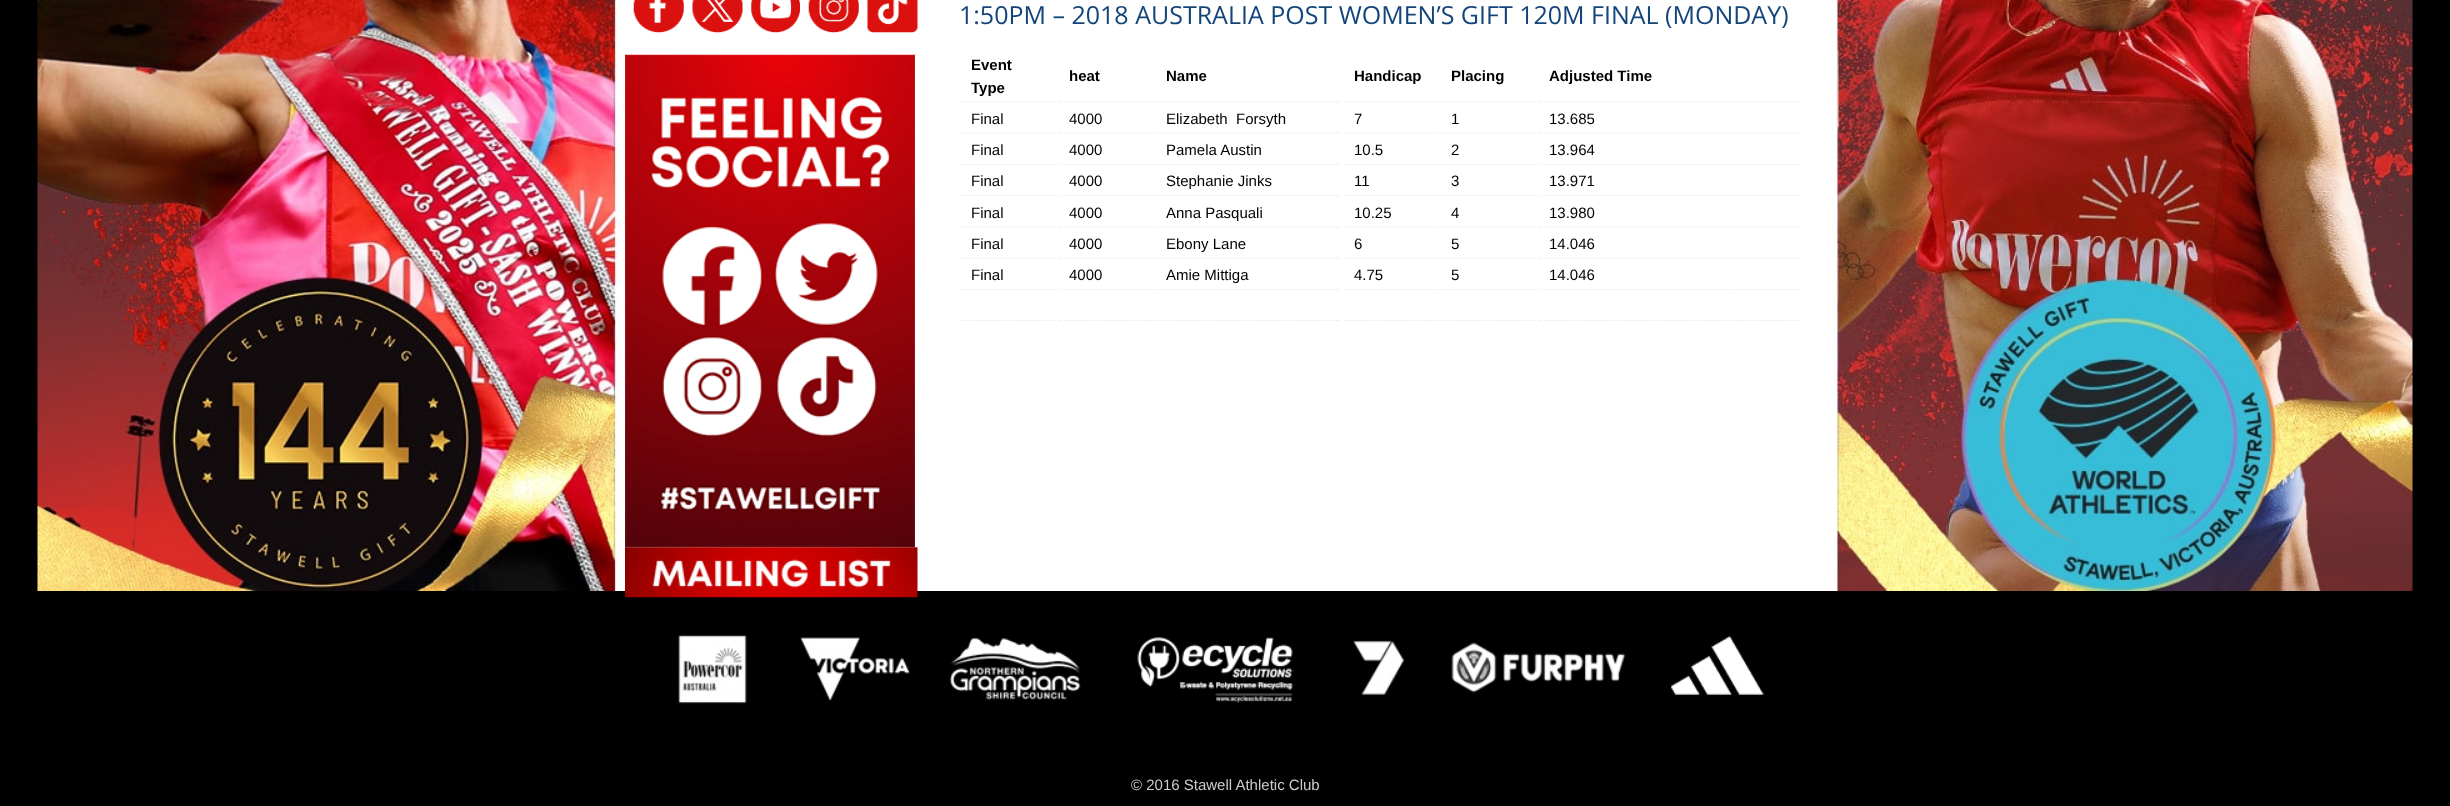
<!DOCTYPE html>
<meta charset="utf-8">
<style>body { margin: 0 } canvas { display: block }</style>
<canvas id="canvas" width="2450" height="806"></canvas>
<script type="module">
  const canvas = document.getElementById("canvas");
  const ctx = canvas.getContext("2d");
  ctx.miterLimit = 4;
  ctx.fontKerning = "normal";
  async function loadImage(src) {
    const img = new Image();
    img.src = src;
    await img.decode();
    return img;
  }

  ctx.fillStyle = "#000000";
  ctx.fillRect(0, 0, 2450, 806);
  ctx.drawImage(await loadImage("img1.png"), 37, 0, 2376, 591);
  ctx.drawImage(await loadImage("img2.png"), 37, 0, 2376, 591);
  ctx.drawImage(await loadImage("img3.png"), 633, 0, 51, 33);
  ctx.drawImage(await loadImage("img4.png"), 692, 0, 51, 33);
  ctx.drawImage(await loadImage("img5.png"), 751, 0, 49, 33);
  ctx.drawImage(await loadImage("img6.png"), 808, 0, 51, 33);
  ctx.drawImage(await loadImage("img7.png"), 867, 0, 51, 33);
  ctx.drawImage(await loadImage("img8.png"), 625, 54, 290, 494);
  ctx.drawImage(await loadImage("img9.png"), 625, 547, 293, 51);
  ctx.font = "25px Open Sans";
  ctx.fillStyle = "#13447a";
  ctx.fillText("1:50PM – 2018 AUSTRALIA POST WOMEN’S GIFT 120M FINAL (MONDAY)", 959, 24);
  ctx.beginPath();
  ctx.moveTo(961, 102);
  ctx.lineTo(1056, 102);
  ctx.strokeStyle = "#e8e8e8";
  ctx.lineWidth = 1.2;
  ctx.setLineDash([1.25, 1.25]);
  ctx.stroke();
  ctx.font = "bold 15px Liberation Sans";
  ctx.fillStyle = "#000000";
  ctx.fillText("Event", 971, 70);
  ctx.fillText("Type", 971, 93);
  ctx.beginPath();
  ctx.moveTo(1059, 102);
  ctx.lineTo(1154, 102);
  ctx.stroke();
  ctx.fillText("heat", 1069, 81);
  ctx.beginPath();
  ctx.moveTo(1156, 102);
  ctx.lineTo(1341, 102);
  ctx.stroke();
  ctx.fillText("Name", 1166, 81);
  ctx.beginPath();
  ctx.moveTo(1344, 102);
  ctx.lineTo(1439, 102);
  ctx.stroke();
  ctx.fillText("Handicap", 1354, 81);
  ctx.beginPath();
  ctx.moveTo(1441, 102);
  ctx.lineTo(1536, 102);
  ctx.stroke();
  ctx.fillText("Placing", 1451, 81);
  ctx.beginPath();
  ctx.moveTo(1539, 102);
  ctx.lineTo(1800, 102);
  ctx.stroke();
  ctx.fillText("Adjusted Time", 1549, 81);
  ctx.beginPath();
  ctx.moveTo(961, 133);
  ctx.lineTo(1056, 133);
  ctx.stroke();
  ctx.font = "15px Liberation Sans";
  ctx.fillText("Final", 971, 124);
  ctx.beginPath();
  ctx.moveTo(1059, 133);
  ctx.lineTo(1154, 133);
  ctx.stroke();
  ctx.fillText("4000", 1069, 124);
  ctx.beginPath();
  ctx.moveTo(1156, 133);
  ctx.lineTo(1341, 133);
  ctx.stroke();
  ctx.fillText("Elizabeth  Forsyth", 1166, 124);
  ctx.beginPath();
  ctx.moveTo(1344, 133);
  ctx.lineTo(1439, 133);
  ctx.stroke();
  ctx.fillText("7", 1354, 124);
  ctx.beginPath();
  ctx.moveTo(1441, 133);
  ctx.lineTo(1536, 133);
  ctx.stroke();
  ctx.fillText("1", 1451, 124);
  ctx.beginPath();
  ctx.moveTo(1539, 133);
  ctx.lineTo(1727.5, 133);
  ctx.stroke();
  ctx.fillText("13.685", 1549, 124);
  ctx.beginPath();
  ctx.moveTo(1730, 133);
  ctx.lineTo(1800, 133);
  ctx.stroke();
  ctx.beginPath();
  ctx.moveTo(961, 164.5);
  ctx.lineTo(1056, 164.5);
  ctx.stroke();
  ctx.fillText("Final", 971, 155);
  ctx.beginPath();
  ctx.moveTo(1059, 164.5);
  ctx.lineTo(1154, 164.5);
  ctx.stroke();
  ctx.fillText("4000", 1069, 155);
  ctx.beginPath();
  ctx.moveTo(1156, 164.5);
  ctx.lineTo(1341, 164.5);
  ctx.stroke();
  ctx.fillText("Pamela Austin", 1166, 155);
  ctx.beginPath();
  ctx.moveTo(1344, 164.5);
  ctx.lineTo(1439, 164.5);
  ctx.stroke();
  ctx.fillText("10.5", 1354, 155);
  ctx.beginPath();
  ctx.moveTo(1441, 164.5);
  ctx.lineTo(1536, 164.5);
  ctx.stroke();
  ctx.fillText("2", 1451, 155);
  ctx.beginPath();
  ctx.moveTo(1539, 164.5);
  ctx.lineTo(1727.5, 164.5);
  ctx.stroke();
  ctx.fillText("13.964", 1549, 155);
  ctx.beginPath();
  ctx.moveTo(1730, 164.5);
  ctx.lineTo(1800, 164.5);
  ctx.stroke();
  ctx.beginPath();
  ctx.moveTo(961, 195.5);
  ctx.lineTo(1056, 195.5);
  ctx.stroke();
  ctx.fillText("Final", 971, 186);
  ctx.beginPath();
  ctx.moveTo(1059, 195.5);
  ctx.lineTo(1154, 195.5);
  ctx.stroke();
  ctx.fillText("4000", 1069, 186);
  ctx.beginPath();
  ctx.moveTo(1156, 195.5);
  ctx.lineTo(1341, 195.5);
  ctx.stroke();
  ctx.fillText("Stephanie Jinks", 1166, 186);
  ctx.beginPath();
  ctx.moveTo(1344, 195.5);
  ctx.lineTo(1439, 195.5);
  ctx.stroke();
  ctx.fillText("11", 1354, 186);
  ctx.beginPath();
  ctx.moveTo(1441, 195.5);
  ctx.lineTo(1536, 195.5);
  ctx.stroke();
  ctx.fillText("3", 1451, 186);
  ctx.beginPath();
  ctx.moveTo(1539, 195.5);
  ctx.lineTo(1727.5, 195.5);
  ctx.stroke();
  ctx.fillText("13.971", 1549, 186);
  ctx.beginPath();
  ctx.moveTo(1730, 195.5);
  ctx.lineTo(1800, 195.5);
  ctx.stroke();
  ctx.beginPath();
  ctx.moveTo(961, 227);
  ctx.lineTo(1056, 227);
  ctx.stroke();
  ctx.fillText("Final", 971, 218);
  ctx.beginPath();
  ctx.moveTo(1059, 227);
  ctx.lineTo(1154, 227);
  ctx.stroke();
  ctx.fillText("4000", 1069, 218);
  ctx.beginPath();
  ctx.moveTo(1156, 227);
  ctx.lineTo(1341, 227);
  ctx.stroke();
  ctx.fillText("Anna Pasquali", 1166, 218);
  ctx.beginPath();
  ctx.moveTo(1344, 227);
  ctx.lineTo(1439, 227);
  ctx.stroke();
  ctx.fillText("10.25", 1354, 218);
  ctx.beginPath();
  ctx.moveTo(1441, 227);
  ctx.lineTo(1536, 227);
  ctx.stroke();
  ctx.fillText("4", 1451, 218);
  ctx.beginPath();
  ctx.moveTo(1539, 227);
  ctx.lineTo(1727.5, 227);
  ctx.stroke();
  ctx.fillText("13.980", 1549, 218);
  ctx.beginPath();
  ctx.moveTo(1730, 227);
  ctx.lineTo(1800, 227);
  ctx.stroke();
  ctx.beginPath();
  ctx.moveTo(961, 258);
  ctx.lineTo(1056, 258);
  ctx.stroke();
  ctx.fillText("Final", 971, 249);
  ctx.beginPath();
  ctx.moveTo(1059, 258);
  ctx.lineTo(1154, 258);
  ctx.stroke();
  ctx.fillText("4000", 1069, 249);
  ctx.beginPath();
  ctx.moveTo(1156, 258);
  ctx.lineTo(1341, 258);
  ctx.stroke();
  ctx.fillText("Ebony Lane", 1166, 249);
  ctx.beginPath();
  ctx.moveTo(1344, 258);
  ctx.lineTo(1439, 258);
  ctx.stroke();
  ctx.fillText("6", 1354, 249);
  ctx.beginPath();
  ctx.moveTo(1441, 258);
  ctx.lineTo(1536, 258);
  ctx.stroke();
  ctx.fillText("5", 1451, 249);
  ctx.beginPath();
  ctx.moveTo(1539, 258);
  ctx.lineTo(1727.5, 258);
  ctx.stroke();
  ctx.fillText("14.046", 1549, 249);
  ctx.beginPath();
  ctx.moveTo(1730, 258);
  ctx.lineTo(1800, 258);
  ctx.stroke();
  ctx.beginPath();
  ctx.moveTo(961, 289.5);
  ctx.lineTo(1056, 289.5);
  ctx.stroke();
  ctx.fillText("Final", 971, 280);
  ctx.beginPath();
  ctx.moveTo(1059, 289.5);
  ctx.lineTo(1154, 289.5);
  ctx.stroke();
  ctx.fillText("4000", 1069, 280);
  ctx.beginPath();
  ctx.moveTo(1156, 289.5);
  ctx.lineTo(1341, 289.5);
  ctx.stroke();
  ctx.fillText("Amie Mittiga", 1166, 280);
  ctx.beginPath();
  ctx.moveTo(1344, 289.5);
  ctx.lineTo(1439, 289.5);
  ctx.stroke();
  ctx.fillText("4.75", 1354, 280);
  ctx.beginPath();
  ctx.moveTo(1441, 289.5);
  ctx.lineTo(1536, 289.5);
  ctx.stroke();
  ctx.fillText("5", 1451, 280);
  ctx.beginPath();
  ctx.moveTo(1539, 289.5);
  ctx.lineTo(1727.5, 289.5);
  ctx.stroke();
  ctx.fillText("14.046", 1549, 280);
  ctx.beginPath();
  ctx.moveTo(1730, 289.5);
  ctx.lineTo(1800, 289.5);
  ctx.stroke();
  ctx.beginPath();
  ctx.moveTo(961, 320.5);
  ctx.lineTo(1056, 320.5);
  ctx.stroke();
  ctx.beginPath();
  ctx.moveTo(1059, 320.5);
  ctx.lineTo(1154, 320.5);
  ctx.stroke();
  ctx.beginPath();
  ctx.moveTo(1156, 320.5);
  ctx.lineTo(1341, 320.5);
  ctx.stroke();
  ctx.beginPath();
  ctx.moveTo(1344, 320.5);
  ctx.lineTo(1439, 320.5);
  ctx.stroke();
  ctx.beginPath();
  ctx.moveTo(1441, 320.5);
  ctx.lineTo(1536, 320.5);
  ctx.stroke();
  ctx.beginPath();
  ctx.moveTo(1539, 320.5);
  ctx.lineTo(1727.5, 320.5);
  ctx.stroke();
  ctx.beginPath();
  ctx.moveTo(1730, 320.5);
  ctx.lineTo(1800, 320.5);
  ctx.stroke();
  ctx.drawImage(await loadImage("img10.png"), 678, 634, 1086, 70);
  ctx.fillStyle = "#cccccc";
  ctx.fillText("© 2016 Stawell Athletic Club", 1131, 790);
</script>
